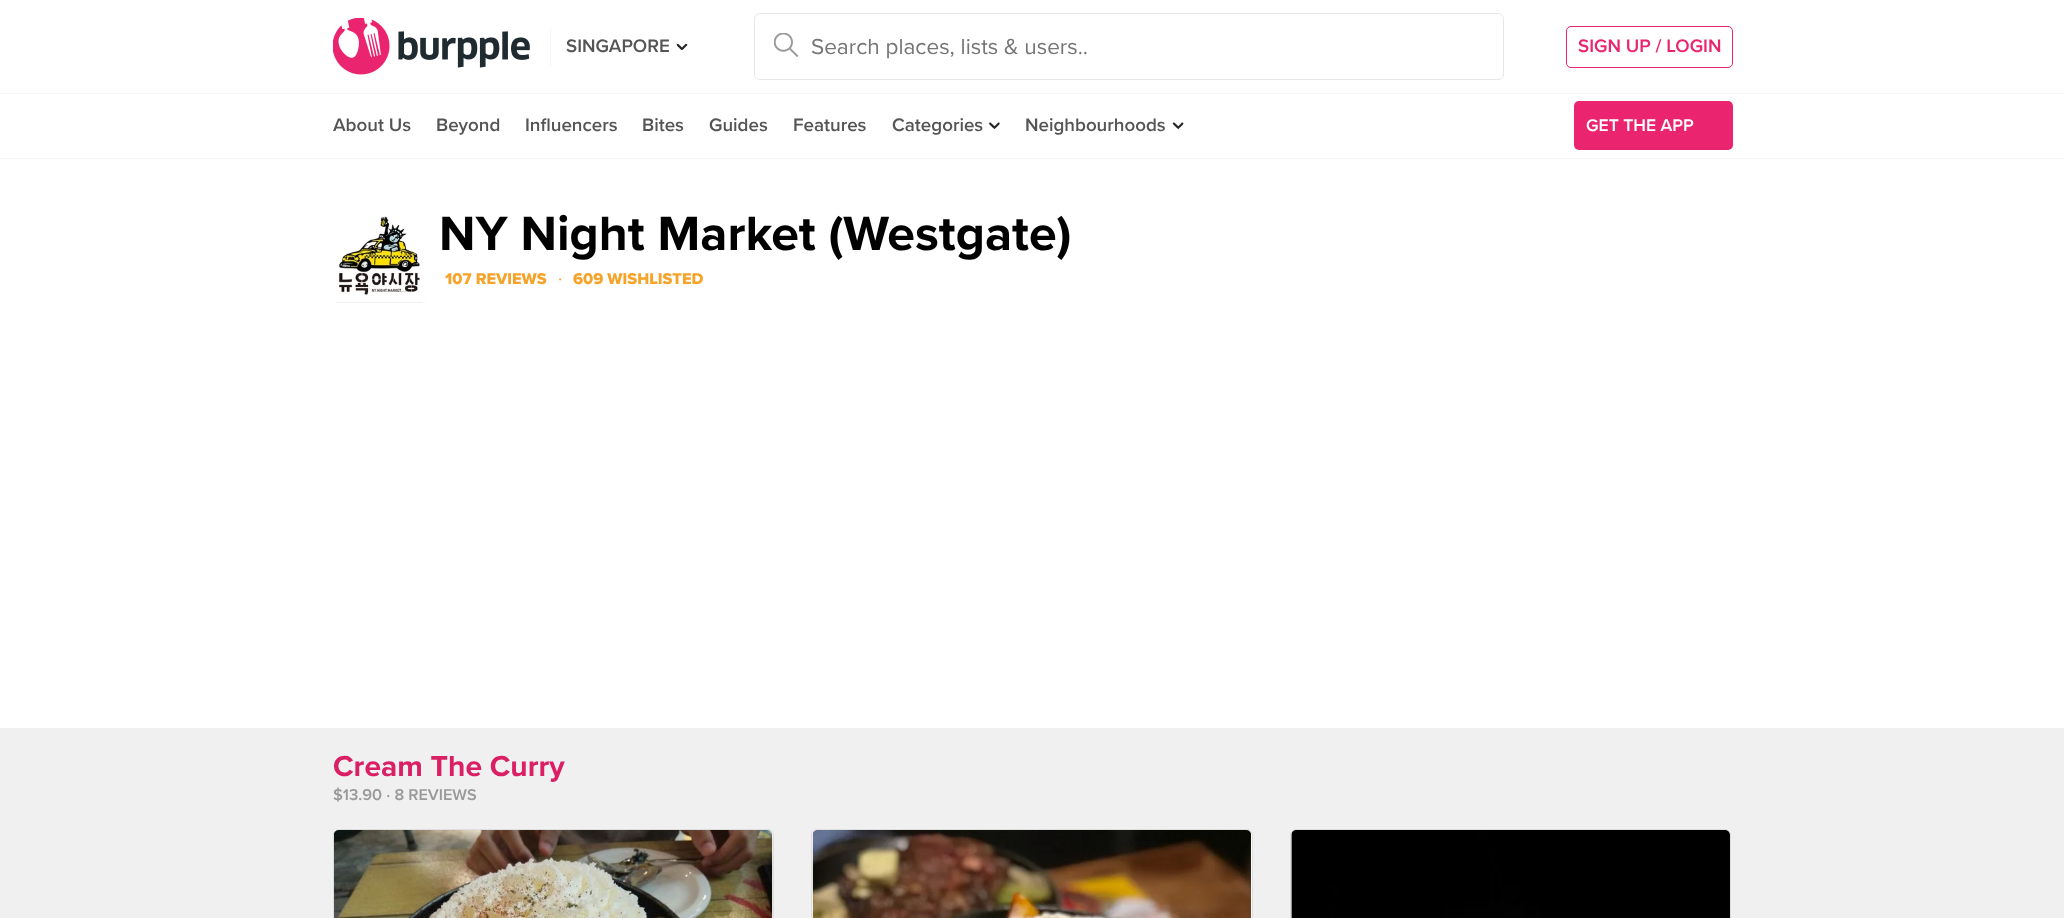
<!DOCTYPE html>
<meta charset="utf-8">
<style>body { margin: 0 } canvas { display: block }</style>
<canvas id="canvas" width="2064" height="918"></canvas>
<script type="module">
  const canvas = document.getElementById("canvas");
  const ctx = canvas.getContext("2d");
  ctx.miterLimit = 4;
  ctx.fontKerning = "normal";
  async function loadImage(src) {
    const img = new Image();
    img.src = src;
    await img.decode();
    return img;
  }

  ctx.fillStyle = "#f0f0f0";
  ctx.fillRect(0, 0, 2064, 918);
  ctx.fillStyle = "#ffffff";
  ctx.fillRect(0, 0, 2064, 158);
  ctx.fillStyle = "#f5f5f5";
  ctx.fillRect(0, 93, 2064, 1);
  ctx.drawImage(await loadImage("img1.png"), 333, 18, 197, 57);
  ctx.fillRect(550, 28, 1, 38);
  ctx.font = "600 18.75px Proxima Nova";
  ctx.fillStyle = "#555555";
  ctx.fillText("SINGAPORE", 566, 52);
  ctx.drawImage(await loadImage("img2.png"), 676, 43, 12, 7);
  ctx.beginPath();
  ctx.roundRect(754.5, 13.5, 749, 66, 5.5);
  ctx.strokeStyle = "#e7e7e7";
  ctx.stroke();
  ctx.drawImage(await loadImage("img3.png"), 774, 33, 25, 25);
  ctx.font = "22.5px Proxima Nova";
  ctx.fillStyle = "#757575";
  ctx.fillText("Search places, lists & users..", 811, 54);
  ctx.beginPath();
  ctx.roundRect(1566.5, 26.5, 166, 41, 4.5);
  ctx.strokeStyle = "#ea246e";
  ctx.stroke();
  ctx.font = "600 18.75px Proxima Nova";
  ctx.fillStyle = "#ea246e";
  ctx.fillText("SIGN UP / LOGIN", 1578, 52);
  ctx.fillStyle = "#f5f5f5";
  ctx.fillRect(0, 158, 2064, 1);
  ctx.fillStyle = "#555555";
  ctx.fillText("About Us", 333, 131);
  ctx.fillText("Beyond", 436, 131);
  ctx.fillText("Influencers", 525, 131);
  ctx.fillText("Bites", 642, 131);
  ctx.fillText("Guides", 709, 131);
  ctx.fillText("Features", 793, 131);
  ctx.fillText("Categories", 892, 131);
  ctx.drawImage(await loadImage("img4.png"), 988, 122, 12, 7);
  ctx.fillText("Neighbourhoods", 1025, 131);
  ctx.drawImage(await loadImage("img5.png"), 1172, 122, 12, 7);
  ctx.fillStyle = "#ea246e";
  ctx.beginPath();
  ctx.roundRect(1574, 101, 159, 49, 5);
  ctx.fill();
  ctx.font = "600 17.5px Proxima Nova";
  ctx.fillStyle = "#ffffff";
  ctx.fillText("GET THE APP", 1586, 131);
  ctx.fillRect(0, 159, 2064, 569);
  ctx.fillStyle = "#f0f0f0";
  ctx.beginPath();
  ctx.roundRect(333, 209, 93, 94, 5);
  ctx.fill();
  ctx.drawImage(await loadImage("img6.png"), 333, 209, 93, 93);
  ctx.font = "bold 50px Proxima Nova";
  ctx.fillStyle = "#000000";
  ctx.fillText("NY Night Market (Westgate)", 439, 250);
  ctx.font = "800 16.25px Proxima Nova";
  ctx.fillStyle = "#f6a329";
  ctx.fillText("107 REVIEWS", 445, 284);
  ctx.font = "18.75px Proxima Nova";
  ctx.fillText("·", 558, 284);
  ctx.font = "800 16.25px Proxima Nova";
  ctx.fillText("609 WISHLISTED", 573, 284);
  ctx.font = "bold 30px Proxima Nova";
  ctx.fillStyle = "#da1f65";
  ctx.fillText("Cream The Curry", 333, 776);
  ctx.font = "600 16.25px Proxima Nova";
  ctx.fillStyle = "#999999";
  ctx.fillText("$13.90 · 8 REVIEWS", 333, 800);
  ctx.fillStyle = "#ffffff";
  ctx.beginPath();
  ctx.roundRect(333.5, 829.5, 440, 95, 5.5);
  ctx.fill();
  ctx.strokeStyle = "#dedede";
  ctx.stroke();
  ctx.drawImage(await loadImage("img7.png"), 334, 830, 439, 88);
  ctx.beginPath();
  ctx.roundRect(811.5, 829.5, 441, 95, 5.5);
  ctx.fill();
  ctx.stroke();
  ctx.drawImage(await loadImage("img8.png"), 812, 830, 439, 88);
  ctx.beginPath();
  ctx.roundRect(1290.5, 829.5, 440, 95, 5.5);
  ctx.fill();
  ctx.stroke();
  ctx.drawImage(await loadImage("img9.png"), 1291, 830, 439, 88);
</script>
